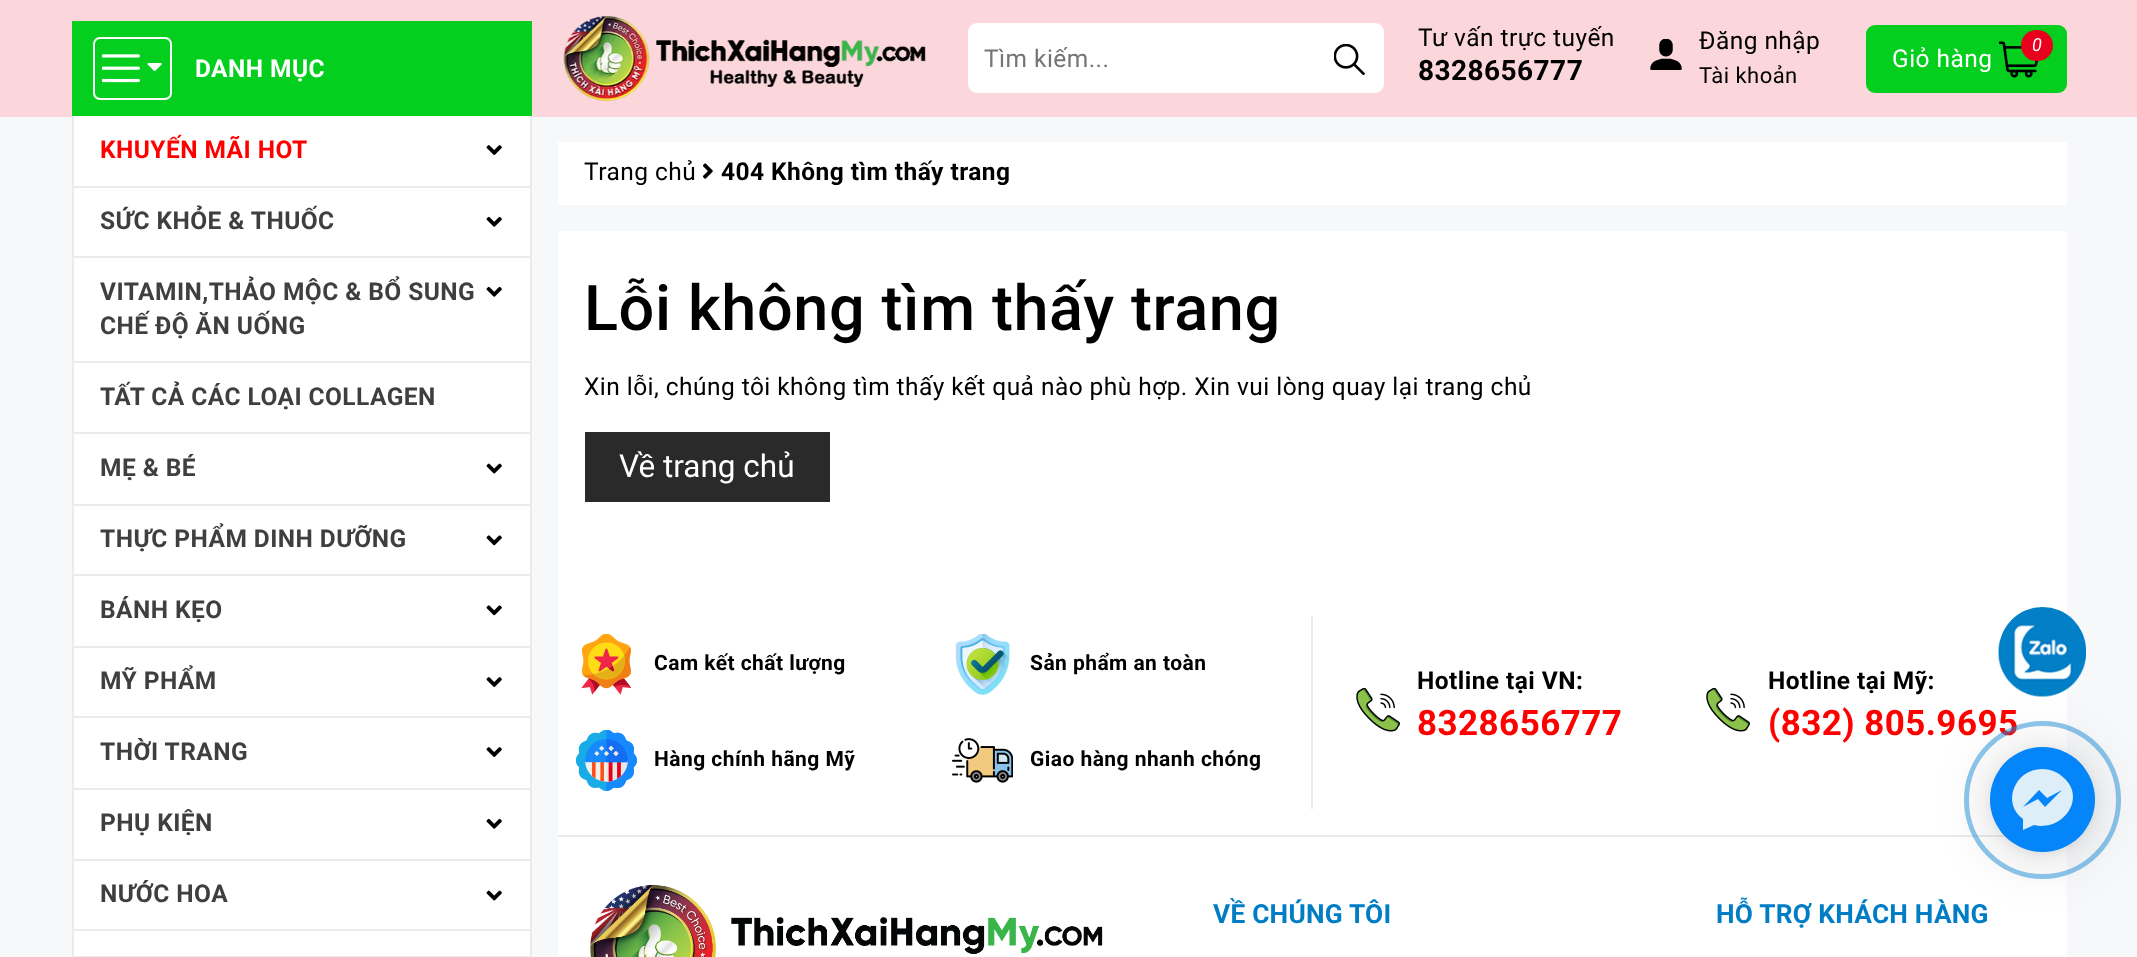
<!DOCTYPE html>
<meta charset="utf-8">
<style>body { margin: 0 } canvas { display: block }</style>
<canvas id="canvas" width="2137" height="957"></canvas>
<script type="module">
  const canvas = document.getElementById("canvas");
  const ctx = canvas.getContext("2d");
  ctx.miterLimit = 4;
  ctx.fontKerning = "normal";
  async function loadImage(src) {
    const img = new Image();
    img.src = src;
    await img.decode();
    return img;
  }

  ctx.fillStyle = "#f7f8f9";
  ctx.fillRect(0, 0, 2137, 957);
  ctx.fillStyle = "#fbd7dc";
  ctx.fillRect(0, 0, 2137, 117);
  ctx.fillStyle = "#04cf1e";
  ctx.fillRect(72, 21, 460, 95);
  ctx.beginPath();
  ctx.roundRect(94, 38, 77, 61, 6);
  ctx.strokeStyle = "#ffffff";
  ctx.lineWidth = 2;
  ctx.stroke();
  ctx.drawImage(await loadImage("img1.png"), 102, 54, 38, 29);
  ctx.drawImage(await loadImage("img2.png"), 147, 63, 15, 8);
  ctx.letterSpacing = "0.45px";
  ctx.font = "bold 24.5px Roboto";
  ctx.fillStyle = "#ffffff";
  ctx.fillText("DANH MỤC", 195, 77);
  ctx.fillRect(74, 116, 456, 840);
  ctx.fillStyle = "#ebebeb";
  ctx.fillRect(530, 116, 2, 841);
  ctx.fillRect(72, 956, 460, 1);
  ctx.fillRect(72, 116, 2, 841);
  ctx.fillRect(74, 186, 456, 2);
  ctx.fillStyle = "#ff0000";
  ctx.fillText("KHUYẾN MÃI HOT", 100, 158);
  ctx.drawImage(await loadImage("img3.png"), 486, 145, 16, 10);
  ctx.fillStyle = "#ebebeb";
  ctx.fillRect(74, 256, 456, 2);
  ctx.fillStyle = "#3f3f3f";
  ctx.fillText("SỨC KHỎE & THUỐC", 100, 229);
  ctx.drawImage(await loadImage("img4.png"), 486, 216, 16, 11);
  ctx.fillStyle = "#ebebeb";
  ctx.fillRect(74, 361, 456, 2);
  ctx.fillStyle = "#3f3f3f";
  ctx.fillText("VITAMIN,THẢO MỘC & BỔ SUNG", 100, 300);
  ctx.fillText("CHẾ ĐỘ ĂN UỐNG", 100, 334);
  ctx.drawImage(await loadImage("img4.png"), 486, 286, 16, 11);
  ctx.fillStyle = "#ebebeb";
  ctx.fillRect(74, 432, 456, 2);
  ctx.fillStyle = "#3f3f3f";
  ctx.fillText("TẤT CẢ CÁC LOẠI COLLAGEN", 100, 405);
  ctx.fillStyle = "#ebebeb";
  ctx.fillRect(74, 504, 456, 2);
  ctx.fillStyle = "#3f3f3f";
  ctx.fillText("MẸ & BÉ", 100, 476);
  ctx.drawImage(await loadImage("img5.png"), 486, 463, 16, 11);
  ctx.fillStyle = "#ebebeb";
  ctx.fillRect(74, 574, 456, 2);
  ctx.fillStyle = "#3f3f3f";
  ctx.fillText("THỰC PHẨM DINH DƯỠNG", 100, 547);
  ctx.drawImage(await loadImage("img6.png"), 486, 535, 16, 11);
  ctx.fillStyle = "#ebebeb";
  ctx.fillRect(74, 646, 456, 2);
  ctx.fillStyle = "#3f3f3f";
  ctx.fillText("BÁNH KẸO", 100, 618);
  ctx.drawImage(await loadImage("img6.png"), 486, 605, 16, 11);
  ctx.fillStyle = "#ebebeb";
  ctx.fillRect(74, 716, 456, 2);
  ctx.fillStyle = "#3f3f3f";
  ctx.fillText("MỸ PHẨM", 100, 689);
  ctx.drawImage(await loadImage("img3.png"), 486, 677, 16, 10);
  ctx.fillStyle = "#ebebeb";
  ctx.fillRect(74, 788, 456, 2);
  ctx.fillStyle = "#3f3f3f";
  ctx.fillText("THỜI TRANG", 100, 760);
  ctx.drawImage(await loadImage("img3.png"), 486, 747, 16, 10);
  ctx.fillStyle = "#ebebeb";
  ctx.fillRect(74, 859, 456, 2);
  ctx.fillStyle = "#3f3f3f";
  ctx.fillText("PHỤ KIỆN", 100, 831);
  ctx.drawImage(await loadImage("img4.png"), 486, 818, 16, 11);
  ctx.fillStyle = "#ebebeb";
  ctx.fillRect(74, 929, 456, 2);
  ctx.fillStyle = "#3f3f3f";
  ctx.fillText("NƯỚC HOA", 100, 902);
  ctx.drawImage(await loadImage("img5.png"), 486, 890, 16, 11);
  ctx.drawImage(await loadImage("img7.png"), 563, 15, 363, 86);
  ctx.fillStyle = "#ffffff";
  ctx.beginPath();
  ctx.roundRect(968, 23, 416, 70, 9);
  ctx.fill();
  ctx.font = "24.5px Roboto";
  ctx.fillStyle = "#757575";
  ctx.fillText("Tìm kiếm...", 984, 67);
  ctx.drawImage(await loadImage("img8.png"), 1334, 44, 31, 31);
  ctx.fillStyle = "#000000";
  ctx.fillText("Tư vấn trực tuyến", 1418, 46);
  ctx.font = "bold 28px Roboto";
  ctx.fillText("8328656777", 1418, 80);
  ctx.drawImage(await loadImage("img9.png"), 1650, 39, 32, 31);
  ctx.font = "24.5px Roboto";
  ctx.fillText("Đăng nhập", 1699, 49);
  ctx.font = "22px Roboto";
  ctx.fillText("Tài khoản", 1699, 83);
  ctx.fillStyle = "#04cf1e";
  ctx.beginPath();
  ctx.roundRect(1866, 25, 201, 68, 9);
  ctx.fill();
  ctx.drawImage(await loadImage("img10.png"), 1999, 41, 40, 37);
  ctx.fillStyle = "#e8001c";
  ctx.beginPath();
  ctx.roundRect(2021, 30, 32, 31, 15.5);
  ctx.fill();
  ctx.font = "italic 18px Roboto";
  ctx.fillStyle = "#ffffff";
  ctx.fillText("0", 2032, 51);
  ctx.font = "24.5px Roboto";
  ctx.fillText("Giỏ hàng", 1892, 67);
  ctx.fillRect(558, 142, 1509, 63);
  ctx.fillStyle = "#000000";
  ctx.fillText("Trang chủ", 584, 180);
  ctx.drawImage(await loadImage("img11.png"), 703, 163, 10, 16);
  ctx.font = "bold 24.5px Roboto";
  ctx.fillText("404 Không tìm thấy trang", 721, 180);
  ctx.fillStyle = "#ffffff";
  ctx.fillRect(558, 231, 1509, 604);
  ctx.letterSpacing = "0.6px";
  ctx.font = "500 63px Roboto";
  ctx.fillStyle = "#000000";
  ctx.fillText("Lỗi không tìm thấy trang", 584, 330);
  ctx.letterSpacing = "0.45px";
  ctx.font = "24.5px Roboto";
  ctx.fillText("Xin lỗi, chúng tôi không tìm thấy kết quả nào phù hợp. Xin vui lòng quay lại trang chủ", 584, 395);
  ctx.fillStyle = "#2a2a2a";
  ctx.fillRect(585, 432, 245, 70);
  ctx.letterSpacing = "0px";
  ctx.font = "31.5px Roboto";
  ctx.fillStyle = "#ffffff";
  ctx.fillText("Về trang chủ", 619, 477);
  ctx.fillStyle = "#ebebeb";
  ctx.fillRect(1311, 616, 2, 193);
  ctx.drawImage(await loadImage("img12.png"), 581, 634, 51, 61);
  ctx.letterSpacing = "0.45px";
  ctx.font = "bold 21px Roboto";
  ctx.fillStyle = "#000000";
  ctx.fillText("Cam kết chất lượng", 654, 670);
  ctx.drawImage(await loadImage("img13.png"), 955, 634, 55, 61);
  ctx.fillText("Sản phẩm an toàn", 1030, 670);
  ctx.drawImage(await loadImage("img14.png"), 576, 730, 61, 61);
  ctx.fillText("Hàng chính hãng Mỹ", 654, 766);
  ctx.drawImage(await loadImage("img15.png"), 952, 738, 61, 45);
  ctx.fillText("Giao hàng nhanh chóng", 1030, 766);
  ctx.drawImage(await loadImage("img16.png"), 1356, 688, 44, 44);
  ctx.font = "bold 24.5px Roboto";
  ctx.fillText("Hotline tại VN:", 1417, 689);
  ctx.font = "bold 35px Roboto";
  ctx.fillStyle = "#ff0000";
  ctx.fillText("8328656777", 1417, 735);
  ctx.drawImage(await loadImage("img16.png"), 1706, 688, 44, 44);
  ctx.font = "bold 24.5px Roboto";
  ctx.fillStyle = "#000000";
  ctx.fillText("Hotline tại Mỹ:", 1768, 689);
  ctx.font = "bold 35px Roboto";
  ctx.fillStyle = "#ff0000";
  ctx.fillText("(832) 805.9695", 1768, 735);
  ctx.fillStyle = "#ffffff";
  ctx.fillRect(558, 837, 1509, 120);
  ctx.fillStyle = "#ebebeb";
  ctx.fillRect(558, 835, 1448, 2);
  ctx.fillStyle = "#0180c7";
  ctx.beginPath();
  ctx.roundRect(1999, 607, 87, 88, 43.5);
  ctx.fill();
  ctx.drawImage(await loadImage("img17.png"), 1998, 624, 88, 73);
  ctx.drawImage(await loadImage("img18.png"), 590, 884, 513, 73);
  ctx.letterSpacing = "0.25px";
  ctx.font = "bold 26.25px Roboto";
  ctx.fillStyle = "#007dc5";
  ctx.fillText("VỀ CHÚNG TÔI", 1213, 923);
  ctx.fillText("HỖ TRỢ KHÁCH HÀNG", 1716, 923);
  ctx.fillStyle = "rgba(0, 0, 0, 0.16)";
  ctx.filter = "blur(28px)";
  ctx.beginPath();
  ctx.roundRect(1990, 751, 105, 105, 52.5);
  ctx.fill();
  ctx.filter = "none";
  ctx.fillStyle = "rgba(0, 0, 0, 0.06)";
  ctx.filter = "blur(5px)";
  ctx.beginPath();
  ctx.roundRect(1990, 749, 105, 105, 52.5);
  ctx.fill();
  ctx.filter = "none";
  ctx.fillStyle = "#0084ff";
  ctx.beginPath();
  ctx.arc(2042.5, 799.5, 52.5, 0, Math.PI * 2);
  ctx.fill();
  ctx.save();
  ctx.beginPath();
  ctx.roundRect(1990, 747, 105, 105, 52.5);
  ctx.clip();
  ctx.fillRect(2000, 758, 84, 84);
  ctx.restore();
  ctx.fillStyle = "#ffffff";
  ctx.beginPath();
  ctx.moveTo(2042, 769);
  ctx.bezierCurveTo(2015, 769, 2001, 803, 2023, 819);
  ctx.lineTo(2023, 830);
  ctx.lineTo(2034, 825);
  ctx.bezierCurveTo(2062, 832, 2087, 799, 2064, 778);
  ctx.bezierCurveTo(2058, 772, 2050, 769, 2042, 769);
  ctx.closePath();
  ctx.moveTo(2045, 807);
  ctx.lineTo(2038, 799);
  ctx.lineTo(2023, 807);
  ctx.lineTo(2039, 790);
  ctx.lineTo(2047, 798);
  ctx.lineTo(2062, 790);
  ctx.closePath();
  ctx.fill();
  ctx.beginPath();
  ctx.roundRect(1966.5, 723.5, 152, 153, 76);
  ctx.strokeStyle = "rgba(26, 138, 213, 0.5)";
  ctx.lineWidth = 5;
  ctx.stroke();
  ctx.fillStyle = "rgba(26, 138, 213, 0.15)";
  ctx.beginPath();
  ctx.arc(2042.5, 799.5, 52.5, 0, Math.PI * 2);
  ctx.fill();
</script>
